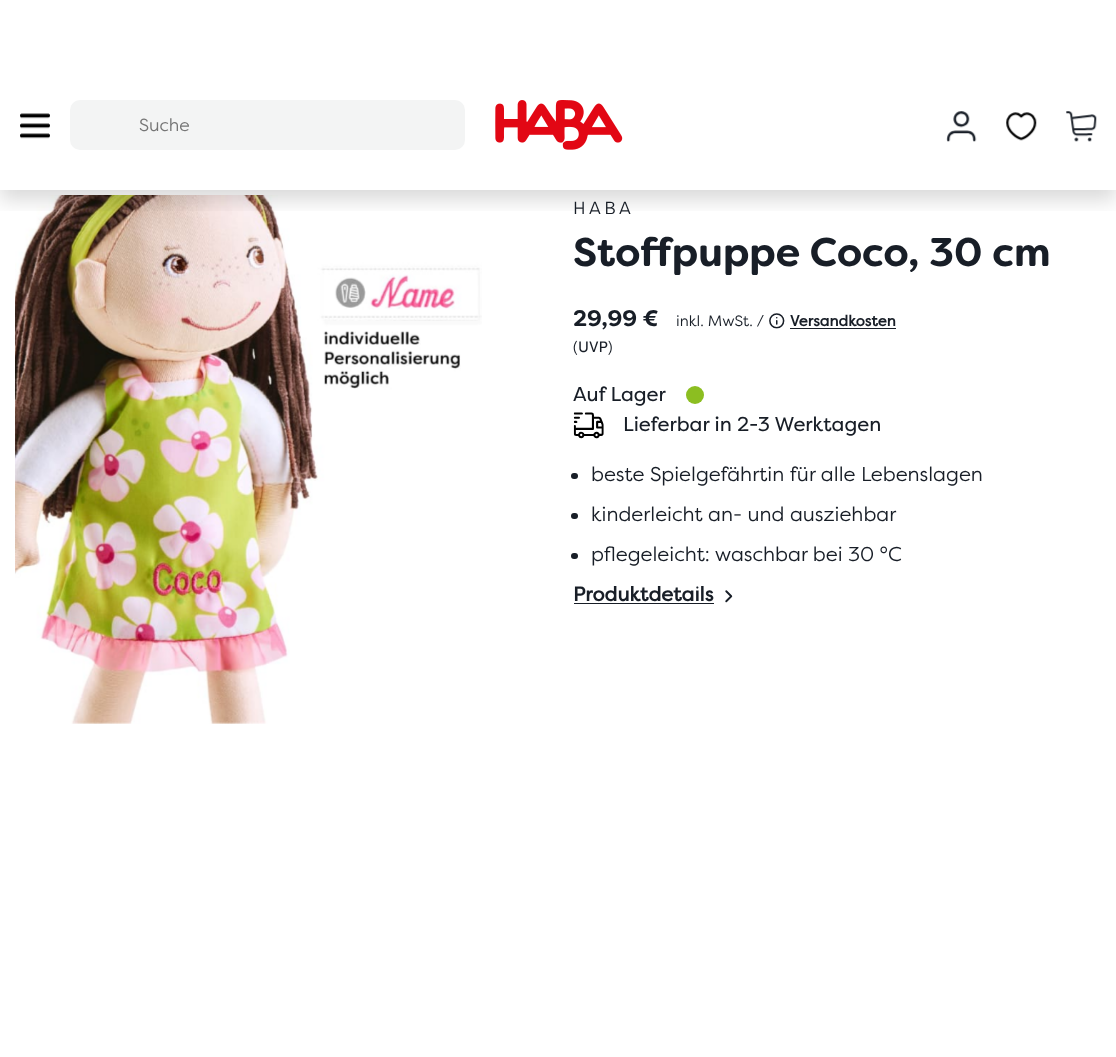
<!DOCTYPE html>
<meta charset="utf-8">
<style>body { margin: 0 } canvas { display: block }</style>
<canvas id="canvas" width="1116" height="1057"></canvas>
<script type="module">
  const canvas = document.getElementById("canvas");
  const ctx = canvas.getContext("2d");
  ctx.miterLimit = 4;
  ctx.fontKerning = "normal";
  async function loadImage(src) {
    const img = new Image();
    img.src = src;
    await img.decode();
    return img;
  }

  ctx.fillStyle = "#ffffff";
  ctx.fillRect(0, 0, 1116, 1057);
  ctx.drawImage(await loadImage("img6.png"), 15, 195, 467, 529);
  ctx.save();
  ctx.beginPath();
  ctx.rect(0, 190, 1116, 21);
  ctx.clip();
  ctx.fillStyle = "rgba(0, 0, 0, 0.15)";
  ctx.filter = "blur(10px)";
  ctx.beginPath();
  ctx.rect(0, 10, 1116, 190);
  ctx.fill();
  ctx.filter = "none";
  ctx.restore();
  ctx.drawImage(await loadImage("img1.png"), 20, 113, 30, 26);
  ctx.fillStyle = "#f3f4f4";
  ctx.beginPath();
  ctx.roundRect(70, 100, 395, 50, 10);
  ctx.fill();
  ctx.font = "17.5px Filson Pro";
  ctx.fillStyle = "#757575";
  ctx.fillText("Suche", 139, 131);
  ctx.drawImage(await loadImage("img2.png"), 495, 100, 128, 50);
  ctx.drawImage(await loadImage("img3.png"), 946, 111, 31, 31);
  ctx.drawImage(await loadImage("img4.png"), 1006, 112, 31, 29);
  ctx.drawImage(await loadImage("img5.png"), 1066, 111, 31, 31);
  ctx.letterSpacing = "3.5px";
  ctx.fillStyle = "#181e27";
  ctx.fillText("HABA", 573, 214);
  ctx.letterSpacing = "0px";
  ctx.font = "bold 40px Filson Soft";
  ctx.fillText("Stoffpuppe Coco, 30 cm", 573, 266);
  ctx.font = "bold 22.5px Filson Soft";
  ctx.fillText("29,99 €", 573, 326);
  ctx.font = "15px Filson Pro";
  ctx.fillText("inkl. MwSt. /", 676, 326);
  ctx.drawImage(await loadImage("img7.png"), 769, 313, 16, 16);
  ctx.font = "bold 15px Filson Pro";
  ctx.fillText("Versandkosten", 790, 326);
  ctx.fillRect(790, 328, 106, 1);
  ctx.font = "15px Filson Pro";
  ctx.fillText("(", 573, 352);
  ctx.font = "15px 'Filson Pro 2'";
  ctx.fillText("UVP", 578, 352);
  ctx.font = "15px Filson Pro";
  ctx.fillText(")", 608, 352);
  ctx.font = "20px 'Filson Pro 2'";
  ctx.fillText("Auf Lager", 573, 401);
  ctx.fillStyle = "#8cbe21";
  ctx.beginPath();
  ctx.arc(695, 395, 9, 0, Math.PI * 2);
  ctx.fill();
  ctx.drawImage(await loadImage("img8.png"), 573, 412, 31, 27);
  ctx.fillStyle = "#181e27";
  ctx.fillText("Lieferbar in 2-3 Werktagen", 623, 431);
  ctx.beginPath();
  ctx.roundRect(571, 473, 7, 6, 3);
  ctx.fill();
  ctx.font = "20px Filson Pro";
  ctx.fillText("beste Spielgefährtin für alle Lebenslagen", 591, 481);
  ctx.beginPath();
  ctx.roundRect(571, 513, 7, 6, 3);
  ctx.fill();
  ctx.fillText("kinderleicht an- und ausziehbar", 591, 521);
  ctx.beginPath();
  ctx.roundRect(571, 553, 7, 6, 3);
  ctx.fill();
  ctx.fillText("pflegeleicht: waschbar bei 30 °C", 591, 561);
  ctx.font = "bold 20px Filson Pro";
  ctx.fillText("Produktdetails", 573, 601);
  ctx.fillRect(574, 603, 140, 1);
  ctx.drawImage(await loadImage("img9.png"), 725, 590, 8, 13);
</script>
